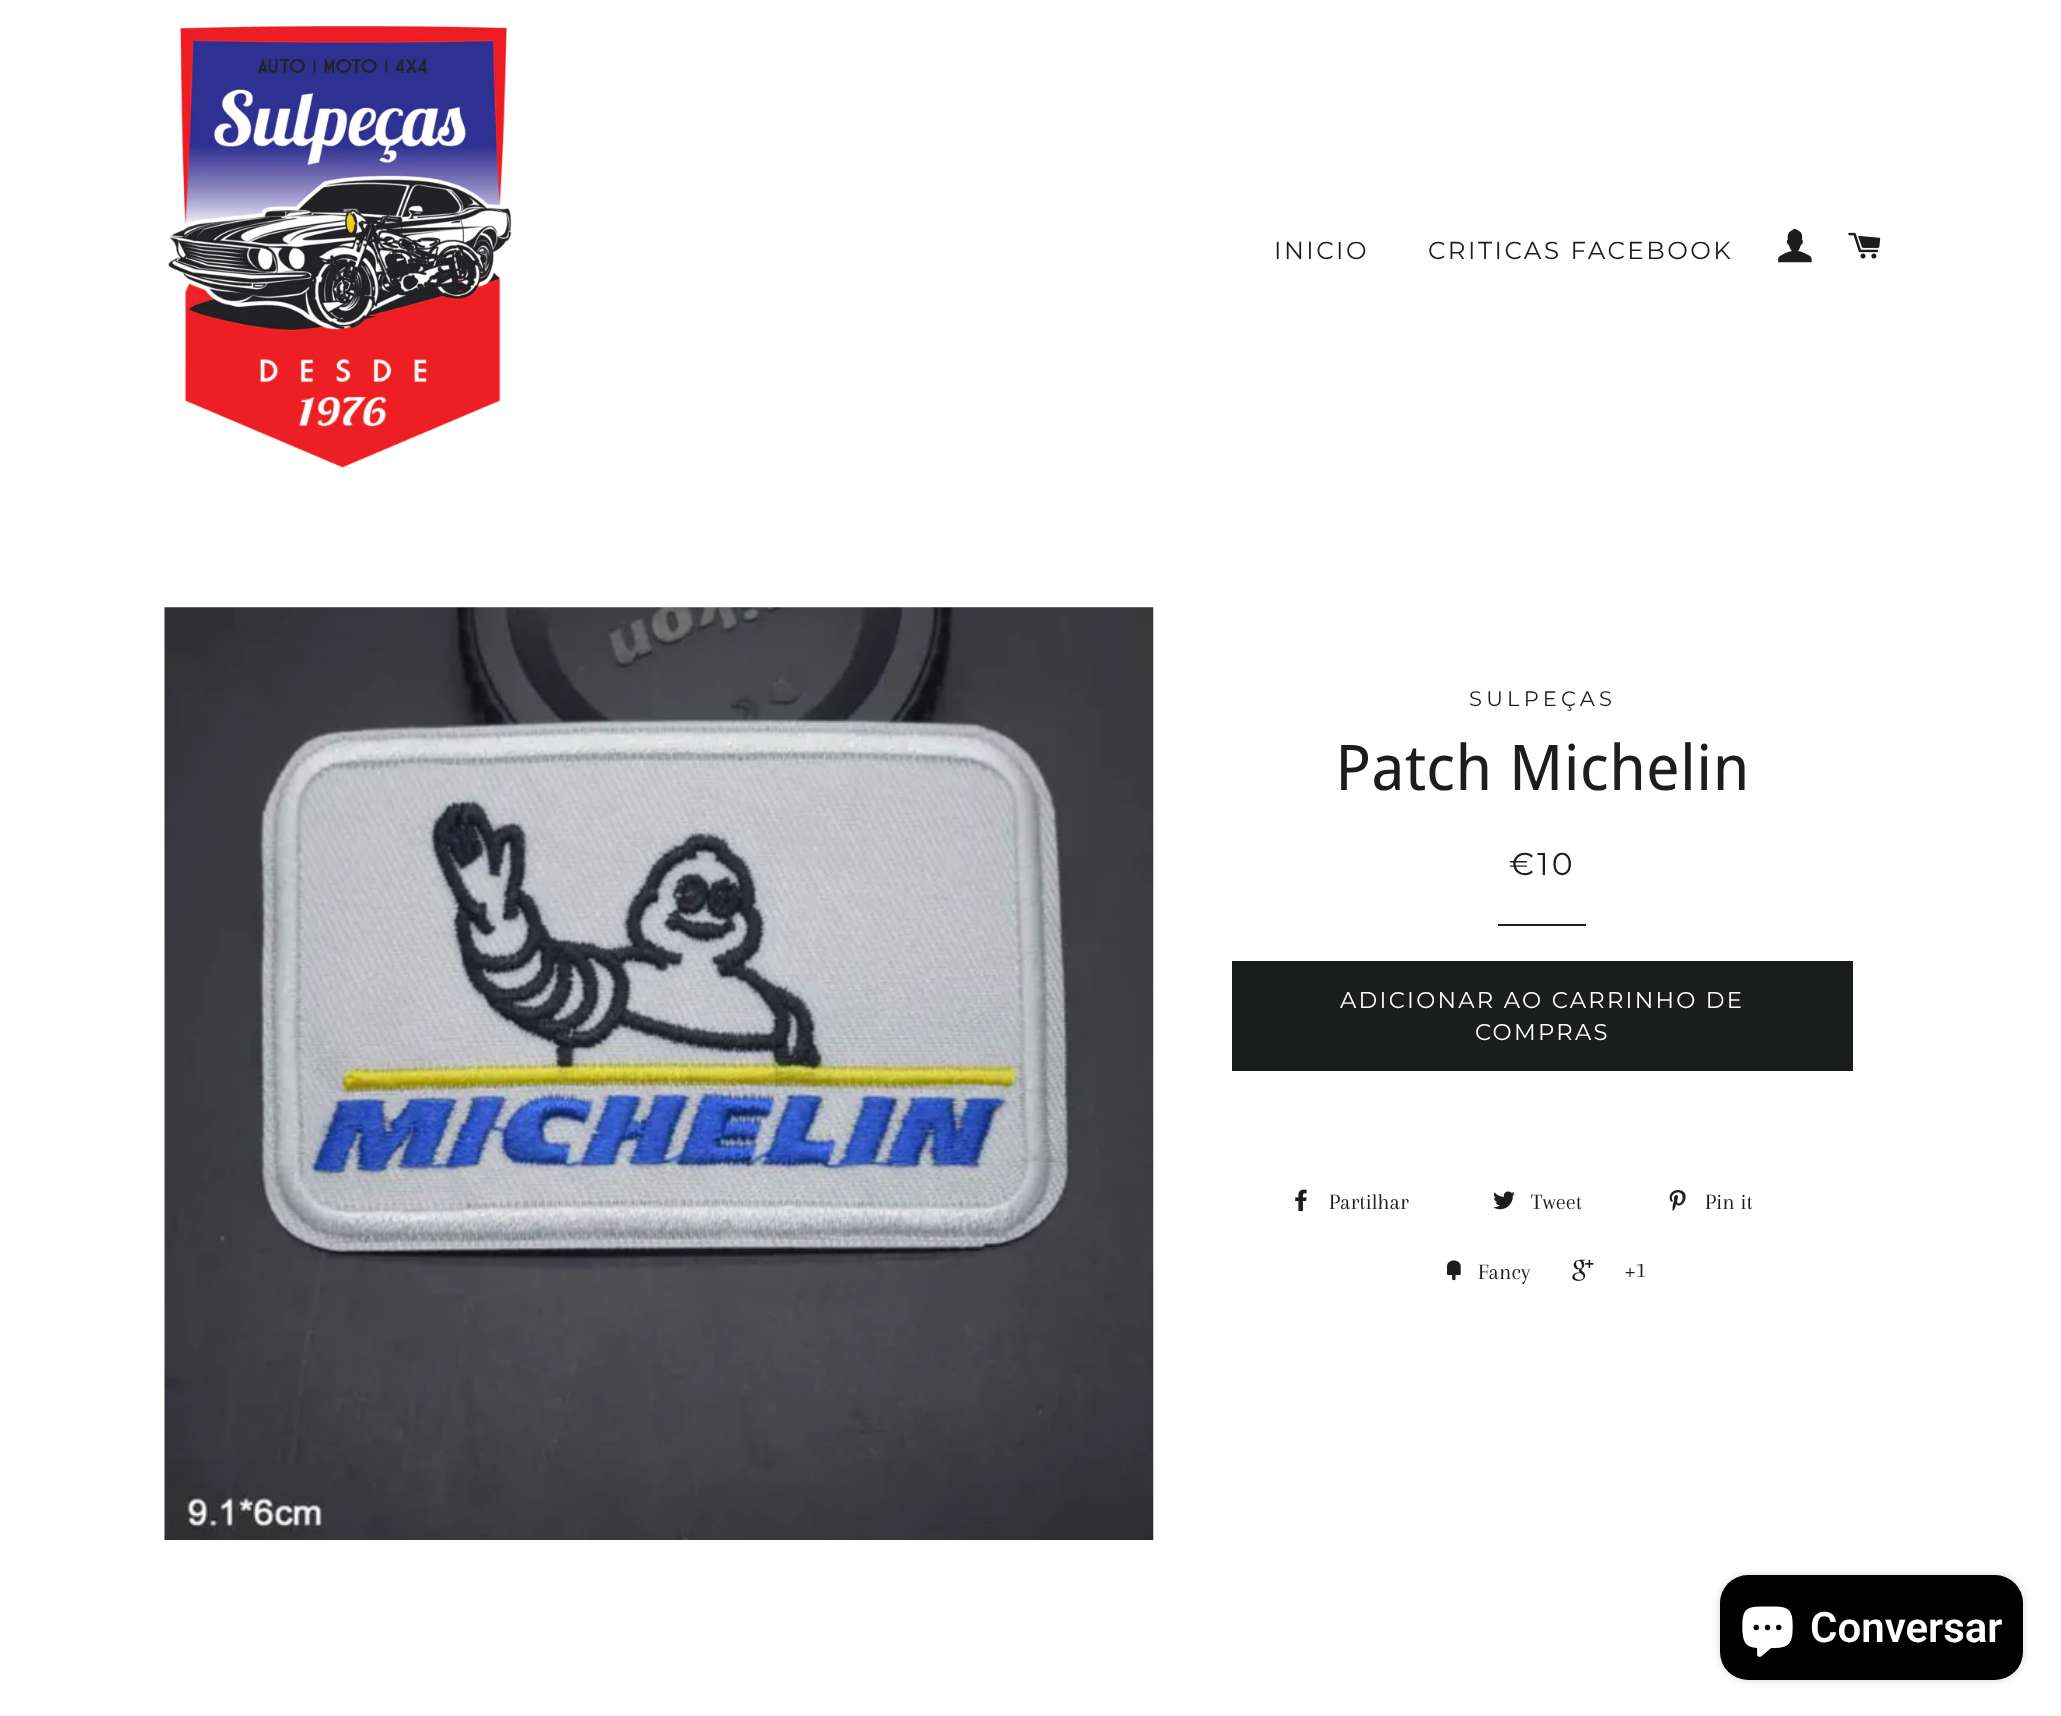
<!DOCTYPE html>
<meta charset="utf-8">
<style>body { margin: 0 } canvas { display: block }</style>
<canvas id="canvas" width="2061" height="1716"></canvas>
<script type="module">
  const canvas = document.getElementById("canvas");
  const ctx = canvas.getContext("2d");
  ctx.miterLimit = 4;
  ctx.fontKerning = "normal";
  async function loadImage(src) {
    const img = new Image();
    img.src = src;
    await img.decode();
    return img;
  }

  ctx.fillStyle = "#ffffff";
  ctx.fillRect(0, 0, 2061, 1716);
  ctx.drawImage(await loadImage("img1.png"), 166, 26, 346, 442);
  ctx.letterSpacing = "2.5px";
  ctx.font = "100 24.5px Montserrat";
  ctx.fillStyle = "#1c1d1d";
  ctx.fillText("INICIO", 1274, 259);
  ctx.fillText("CRITICAS FACEBOOK", 1428, 259);
  ctx.drawImage(await loadImage("img2.png"), 1778, 228, 34, 35);
  ctx.drawImage(await loadImage("img3.png"), 1848, 232, 33, 27);
  ctx.drawImage(await loadImage("img4.png"), 164, 607, 990, 933);
  ctx.letterSpacing = "4.25px";
  ctx.font = "100 21px Montserrat";
  ctx.fillText("SULPEÇAS", 1469, 706);
  ctx.letterSpacing = "0px";
  ctx.font = "63px Droid Sans";
  ctx.fillText("Patch Michelin", 1335, 790);
  ctx.letterSpacing = "3px";
  ctx.font = "100 31.5px Montserrat";
  ctx.fillText("€10", 1509, 875);
  ctx.fillRect(1498, 924, 88, 2);
  ctx.fillRect(1232, 961, 621, 110);
  ctx.letterSpacing = "2.25px";
  ctx.font = "100 22.75px Montserrat";
  ctx.fillStyle = "#ffffff";
  ctx.fillText("ADICIONAR AO CARRINHO DE", 1340, 1008);
  ctx.fillText("COMPRAS", 1475, 1040);
  ctx.drawImage(await loadImage("img5.png"), 1295, 1189, 12, 23);
  ctx.letterSpacing = "0px";
  ctx.font = "22.75px Arapey";
  ctx.fillStyle = "#1c1d1d";
  ctx.fillText("Partilhar", 1329, 1209);
  ctx.drawImage(await loadImage("img6.png"), 1493, 1191, 22, 19);
  ctx.fillText("Tweet", 1531, 1209);
  ctx.drawImage(await loadImage("img7.png"), 1669, 1190, 17, 21);
  ctx.fillText("Pin it", 1705, 1209);
  ctx.drawImage(await loadImage("img8.png"), 1447, 1260, 14, 21);
  ctx.fillText("Fancy", 1478, 1279);
  ctx.drawImage(await loadImage("img9.png"), 1572, 1259, 22, 22);
  ctx.fillText("+1", 1624, 1277);
  ctx.fillStyle = "#f6f6f6";
  ctx.fillRect(0, 1715, 2061, 1);
  ctx.fillStyle = "rgba(0, 0, 0, 0.15)";
  ctx.filter = "blur(4.5px)";
  ctx.beginPath();
  ctx.roundRect(1720, 1575, 303, 105, 28);
  ctx.fill();
  ctx.filter = "none";
  ctx.fillStyle = "#000000";
  ctx.beginPath();
  ctx.roundRect(1720, 1575, 303, 105, 28);
  ctx.fill();
  ctx.drawImage(await loadImage("img10.png"), 1742, 1606, 51, 51);
  ctx.font = "600 42px Roboto";
  ctx.fillStyle = "#ffffff";
  ctx.fillText("Conversar", 1810, 1642);
</script>
